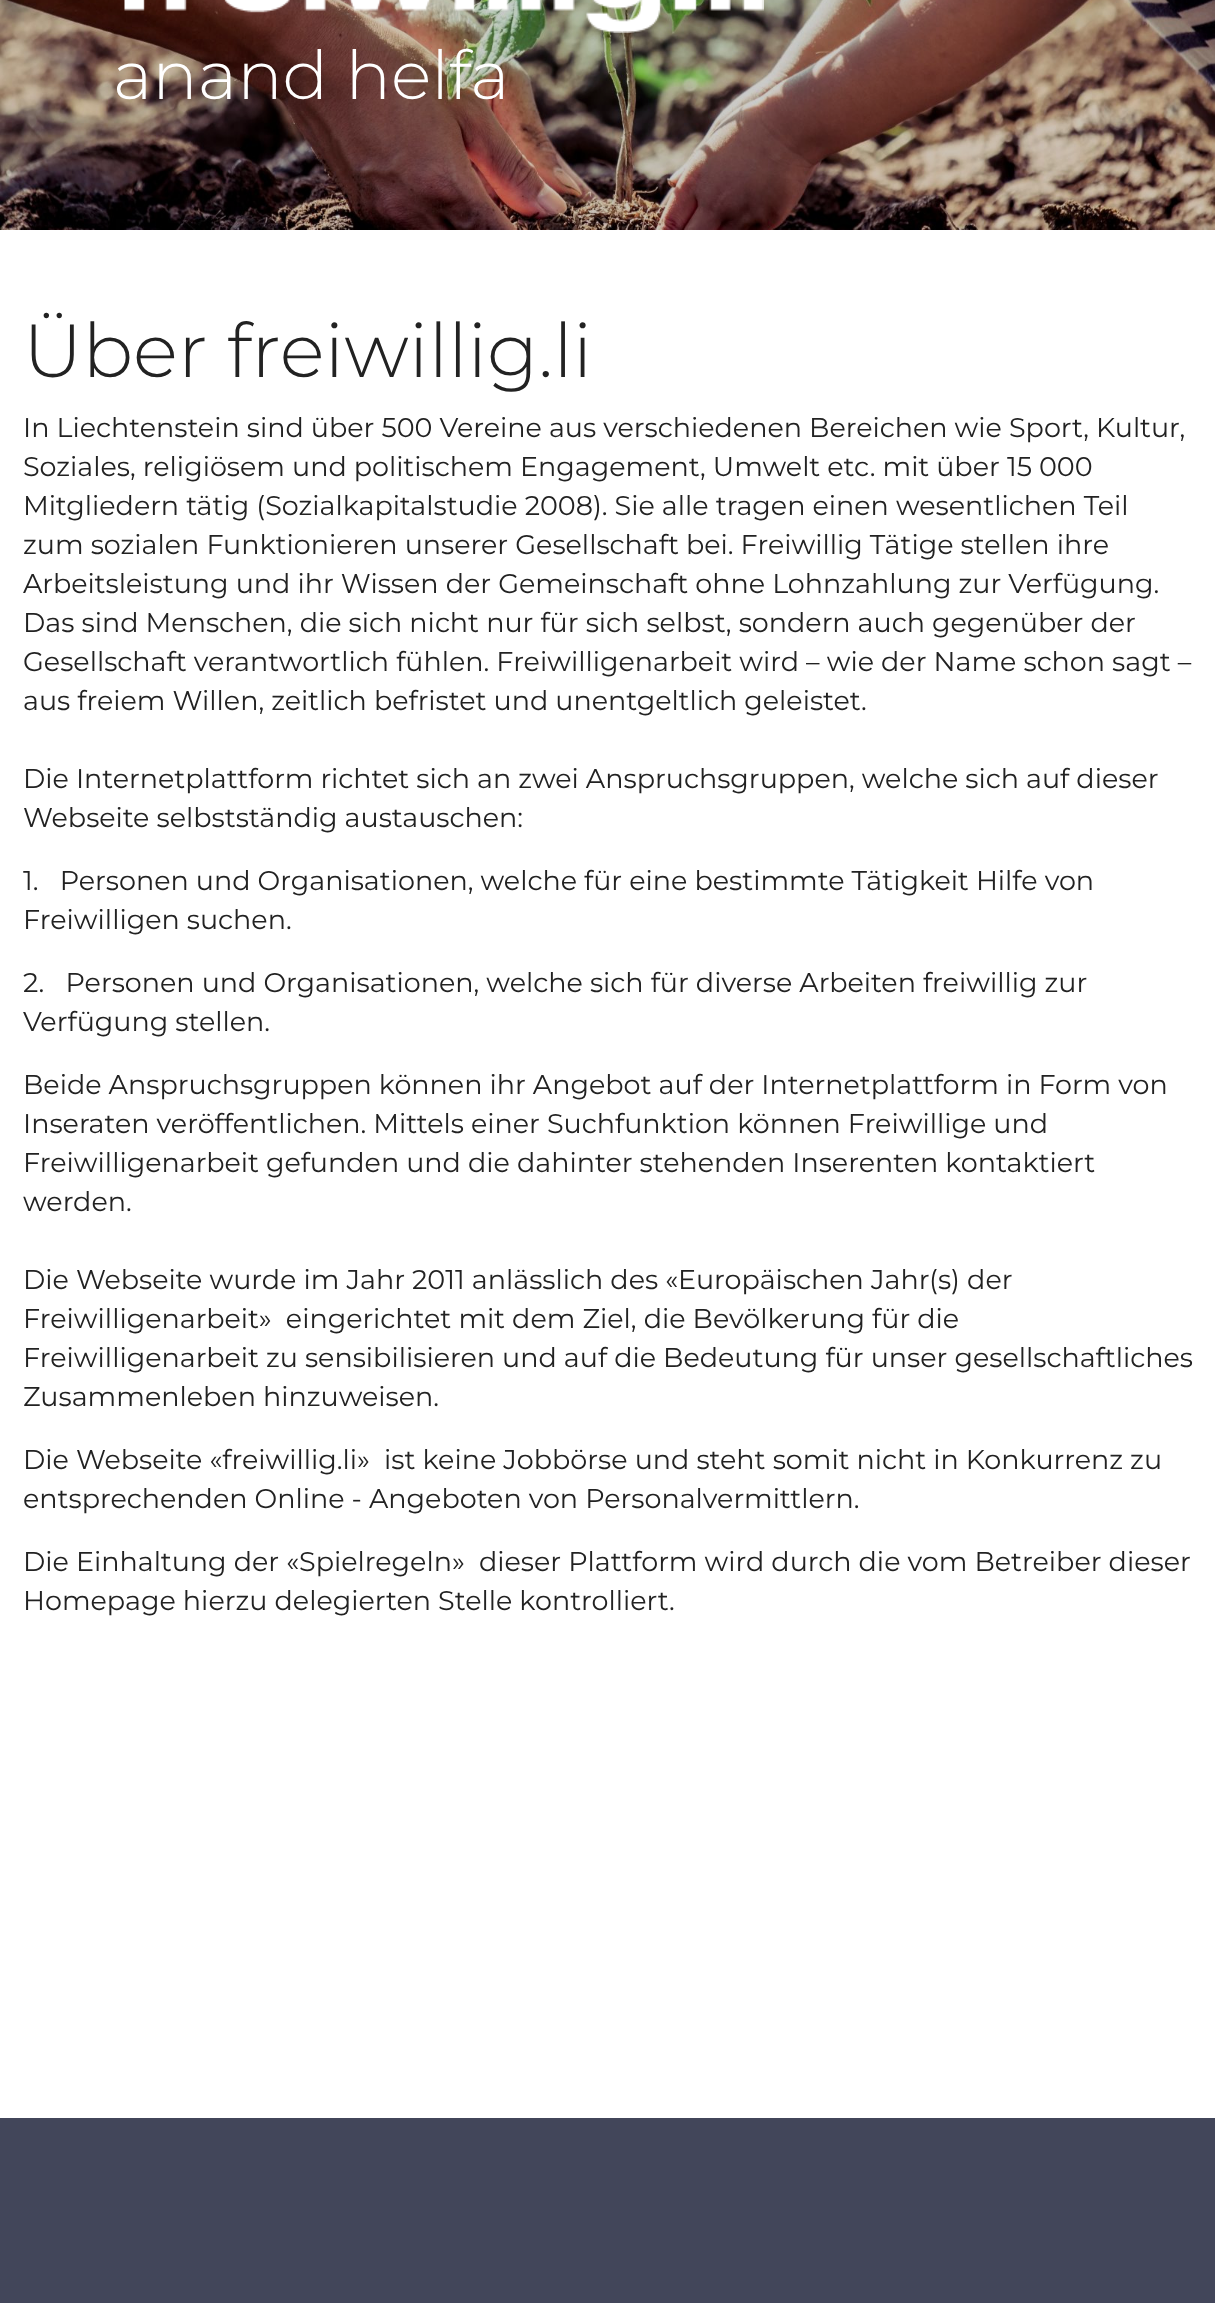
<!DOCTYPE html>
<meta charset="utf-8">
<style>body { margin: 0 } canvas { display: block }</style>
<canvas id="canvas" width="1215" height="2303"></canvas>
<script type="module">
  const canvas = document.getElementById("canvas");
  const ctx = canvas.getContext("2d");
  ctx.miterLimit = 4;
  ctx.fontKerning = "normal";
  async function loadImage(src) {
    const img = new Image();
    img.src = src;
    await img.decode();
    return img;
  }

  ctx.fillStyle = "#ffffff";
  ctx.fillRect(0, 0, 1215, 2303);
  ctx.drawImage(await loadImage("img1.png"), 0, 0, 1215, 230);
  ctx.drawImage(await loadImage("img2.png"), 124, 0, 640, 33);
  ctx.font = "300 67.5px Montserrat";
  ctx.fillText("anand helfa", 113, 99);
  ctx.font = "300 75px Montserrat";
  ctx.fillStyle = "#222222";
  ctx.fillText("Über freiwillig.li", 23, 377);
  ctx.font = "27px Montserrat";
  ctx.fillText("In Liechtenstein sind über 500 Vereine aus verschiedenen Bereichen wie Sport, Kultur,", 23, 437);
  ctx.fillText("Soziales, religiösem und politischem Engagement, Umwelt etc. mit über 15 000", 23, 476);
  ctx.fillText("Mitgliedern tätig (Sozialkapitalstudie 2008). Sie alle tragen einen wesentlichen Teil", 23, 515);
  ctx.fillText("zum sozialen Funktionieren unserer Gesellschaft bei. Freiwillig Tätige stellen ihre", 23, 554);
  ctx.fillText("Arbeitsleistung und ihr Wissen der Gemeinschaft ohne Lohnzahlung zur Verfügung.", 23, 593);
  ctx.fillText("Das sind Menschen, die sich nicht nur für sich selbst, sondern auch gegenüber der", 23, 632);
  ctx.fillText("Gesellschaft verantwortlich fühlen. Freiwilligenarbeit wird – wie der Name schon sagt –", 23, 671);
  ctx.fillText("aus freiem Willen, zeitlich befristet und unentgeltlich geleistet.", 23, 710);
  ctx.fillText("Die Internetplattform richtet sich an zwei Anspruchsgruppen, welche sich auf dieser", 23, 788);
  ctx.fillText("Webseite selbstständig austauschen:", 23, 827);
  ctx.fillText("1.   Personen und Organisationen, welche für eine bestimmte Tätigkeit Hilfe von", 23, 890);
  ctx.fillText("Freiwilligen suchen.", 23, 929);
  ctx.fillText("2.   Personen und Organisationen, welche sich für diverse Arbeiten freiwillig zur", 23, 992);
  ctx.fillText("Verfügung stellen.", 23, 1031);
  ctx.fillText("Beide Anspruchsgruppen können ihr Angebot auf der Internetplattform in Form von", 23, 1094);
  ctx.fillText("Inseraten veröffentlichen. Mittels einer Suchfunktion können Freiwillige und", 23, 1133);
  ctx.fillText("Freiwilligenarbeit gefunden und die dahinter stehenden Inserenten kontaktiert", 23, 1172);
  ctx.fillText("werden.", 23, 1211);
  ctx.fillText("Die Webseite wurde im Jahr 2011 anlässlich des «Europäischen Jahr(s) der", 23, 1289);
  ctx.fillText("Freiwilligenarbeit»  eingerichtet mit dem Ziel, die Bevölkerung für die", 23, 1328);
  ctx.fillText("Freiwilligenarbeit zu sensibilisieren und auf die Bedeutung für unser gesellschaftliches", 23, 1367);
  ctx.fillText("Zusammenleben hinzuweisen.", 23, 1406);
  ctx.fillText("Die Webseite «freiwillig.li»  ist keine Jobbörse und steht somit nicht in Konkurrenz zu", 23, 1469);
  ctx.fillText("entsprechenden Online - Angeboten von Personalvermittlern.", 23, 1508);
  ctx.fillText("Die Einhaltung der «Spielregeln»  dieser Plattform wird durch die vom Betreiber dieser", 23, 1571);
  ctx.fillText("Homepage hierzu delegierten Stelle kontrolliert.", 23, 1610);
  ctx.fillStyle = "#42465a";
  ctx.fillRect(0, 2118, 1215, 185);
</script>
